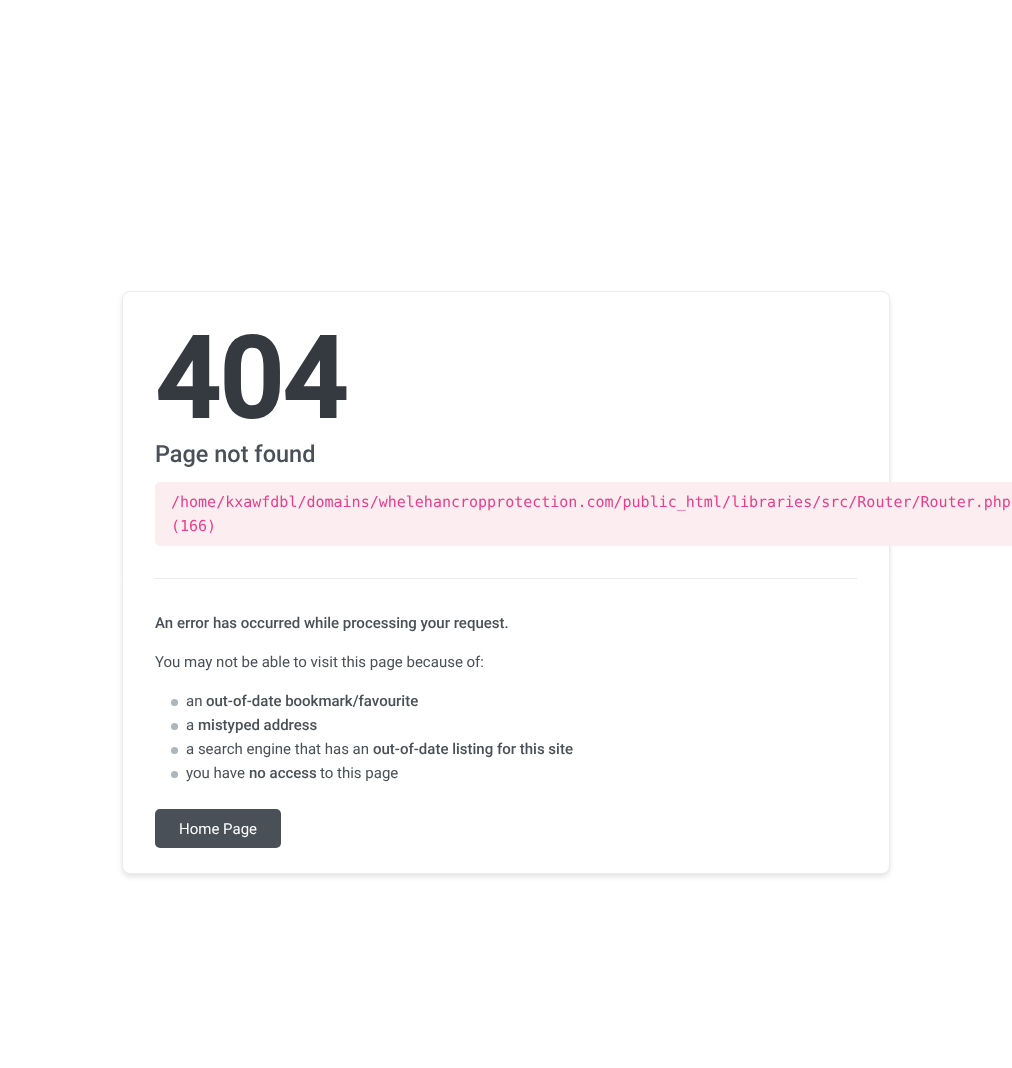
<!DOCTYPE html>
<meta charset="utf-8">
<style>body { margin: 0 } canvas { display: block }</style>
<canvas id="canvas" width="1012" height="1068"></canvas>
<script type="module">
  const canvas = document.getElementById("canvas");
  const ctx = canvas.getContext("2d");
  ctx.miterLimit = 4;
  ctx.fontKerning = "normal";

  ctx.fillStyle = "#ffffff";
  ctx.fillRect(0, 0, 1012, 1068);
  ctx.fillStyle = "rgba(0, 0, 0, 0.1)";
  ctx.filter = "blur(2.5px)";
  ctx.beginPath();
  ctx.roundRect(122, 294, 768, 583, 8);
  ctx.fill();
  ctx.filter = "none";
  ctx.fillStyle = "#ffffff";
  ctx.beginPath();
  ctx.roundRect(122.5, 291.5, 767, 582, 7.5);
  ctx.fill();
  ctx.strokeStyle = "#e9ecef";
  ctx.stroke();
  ctx.fillStyle = "#e9ecef";
  ctx.fillRect(155, 578, 702, 1);
  ctx.font = "bold 112px Roboto";
  ctx.fillStyle = "#343a40";
  ctx.fillText("404", 155, 418);
  ctx.font = "500 23.5px Roboto";
  ctx.fillStyle = "#495057";
  ctx.fillText("Page not found", 155, 462);
  ctx.fillStyle = "#fceef0";
  ctx.beginPath();
  ctx.roundRect(155, 482, 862, 64, 5);
  ctx.fill();
  ctx.font = "15px DejaVu Sans Mono";
  ctx.fillStyle = "#e83e8c";
  ctx.fillText("/home/kxawfdbl/domains/whelehancropprotection.com/public_html/libraries/src/Router/Router.php", 171, 507);
  ctx.fillText("(166)", 171, 531);
  ctx.font = "500 15px Roboto";
  ctx.fillStyle = "#495057";
  ctx.fillText("An error has occurred while processing your request.", 155, 628);
  ctx.font = "15px Roboto";
  ctx.fillText("You may not be able to visit this page because of:", 155, 667);
  ctx.fillStyle = "#adb5bd";
  ctx.beginPath();
  ctx.arc(174.5, 702.5, 3.5, 0, Math.PI * 2);
  ctx.fill();
  ctx.fillStyle = "#495057";
  ctx.fillText("an", 186, 706);
  ctx.font = "500 15px Roboto";
  ctx.fillText("out-of-date bookmark/favourite", 206, 706);
  ctx.fillStyle = "#adb5bd";
  ctx.beginPath();
  ctx.arc(174.5, 726.5, 3.5, 0, Math.PI * 2);
  ctx.fill();
  ctx.font = "15px Roboto";
  ctx.fillStyle = "#495057";
  ctx.fillText("a", 186, 730);
  ctx.font = "500 15px Roboto";
  ctx.fillText("mistyped address", 198, 730);
  ctx.fillStyle = "#adb5bd";
  ctx.beginPath();
  ctx.arc(174.5, 750.5, 3.5, 0, Math.PI * 2);
  ctx.fill();
  ctx.font = "15px Roboto";
  ctx.fillStyle = "#495057";
  ctx.fillText("a search engine that has an", 186, 754);
  ctx.font = "500 15px Roboto";
  ctx.fillText("out-of-date listing for this site", 373, 754);
  ctx.fillStyle = "#adb5bd";
  ctx.beginPath();
  ctx.arc(174.5, 774.5, 3.5, 0, Math.PI * 2);
  ctx.fill();
  ctx.font = "15px Roboto";
  ctx.fillStyle = "#495057";
  ctx.fillText("you have", 186, 778);
  ctx.font = "500 15px Roboto";
  ctx.fillText("no access", 249, 778);
  ctx.font = "15px Roboto";
  ctx.fillText("to this page", 320, 778);
  ctx.beginPath();
  ctx.roundRect(155, 809, 126, 39, 5);
  ctx.fill();
  ctx.fillStyle = "#ffffff";
  ctx.fillText("Home Page", 179, 834);
</script>
